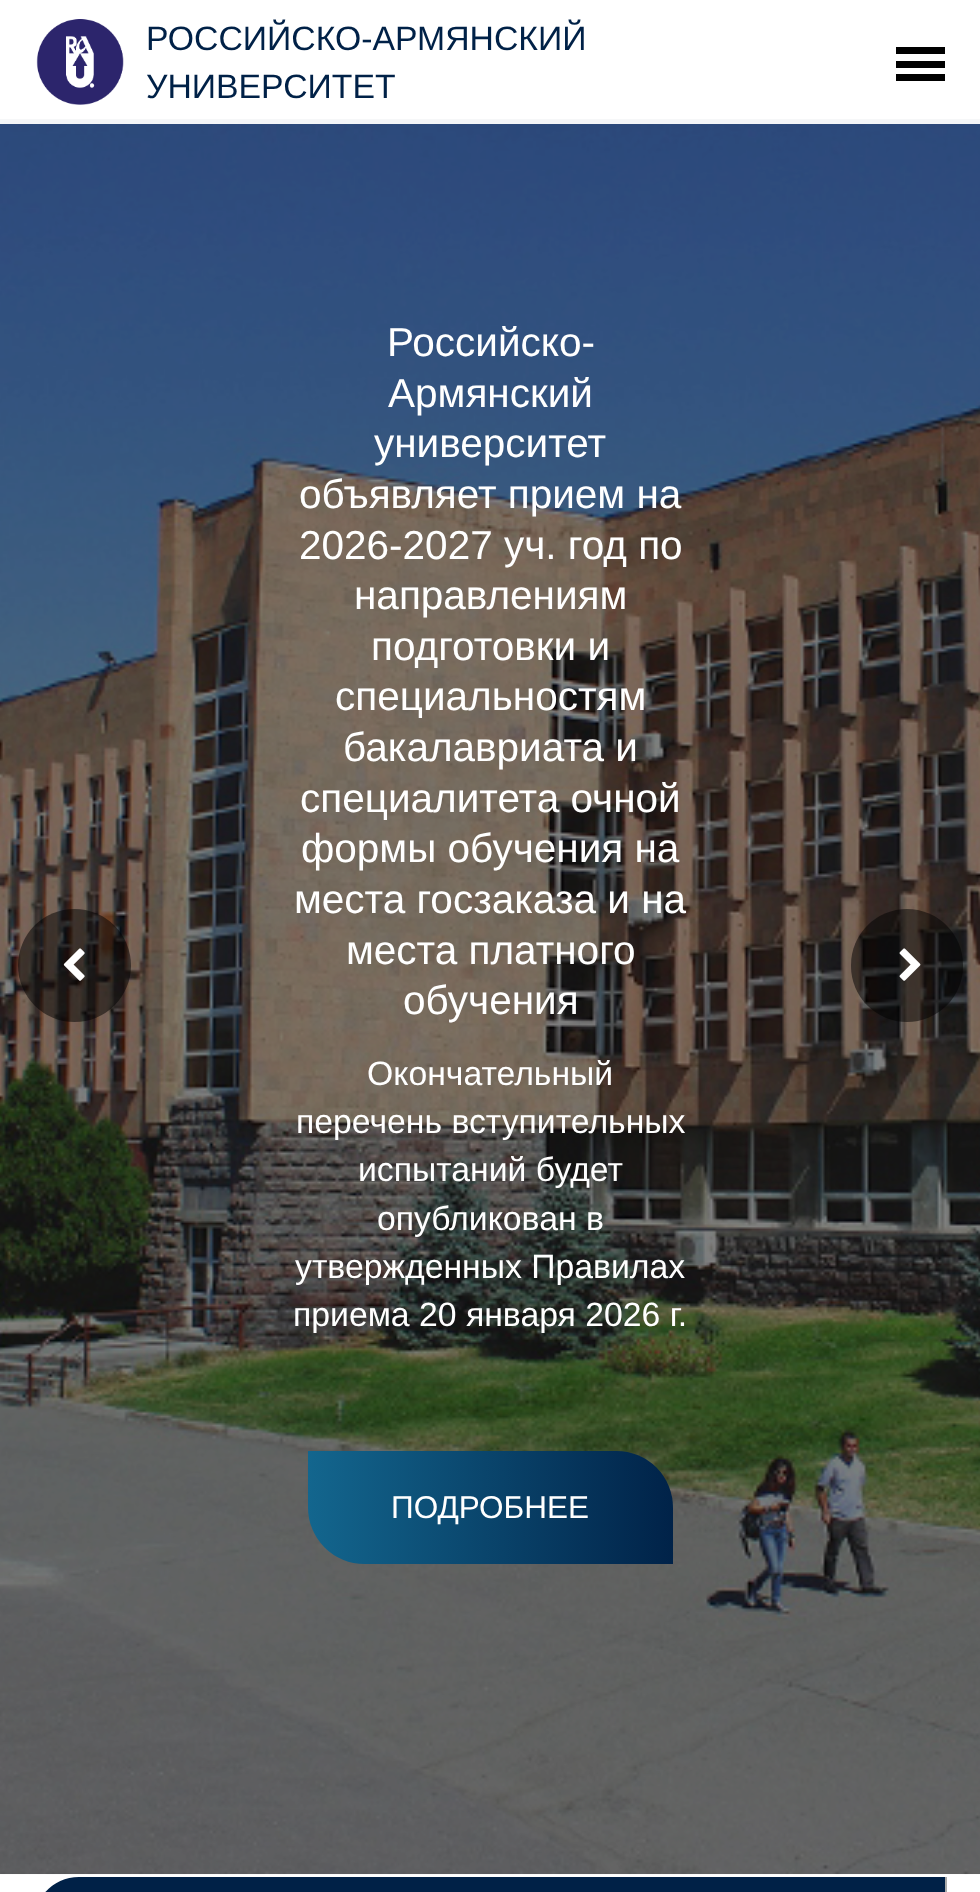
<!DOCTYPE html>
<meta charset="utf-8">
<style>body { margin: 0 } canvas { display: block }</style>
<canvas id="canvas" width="980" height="1892"></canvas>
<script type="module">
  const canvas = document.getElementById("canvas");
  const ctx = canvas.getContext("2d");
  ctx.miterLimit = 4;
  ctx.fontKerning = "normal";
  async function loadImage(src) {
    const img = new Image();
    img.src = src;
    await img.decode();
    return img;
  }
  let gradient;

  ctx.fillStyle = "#ffffff";
  ctx.fillRect(0, 0, 980, 1892);
  ctx.fillStyle = "#808080";
  ctx.fillRect(0, 119, 980, 1);
  ctx.drawImage(await loadImage("img2.png"), 0, 119, 980, 1756);
  ctx.fillStyle = "rgba(255, 255, 255, 0.95)";
  ctx.fillRect(0, 119, 980, 5);
  ctx.drawImage(await loadImage("img1.png"), 36, 19, 88, 86);
  ctx.font = "33.75px Liberation Sans";
  ctx.fillStyle = "#002147";
  ctx.fillText("РОССИЙСКО-АРМЯНСКИЙ", 146, 50);
  ctx.fillText("УНИВЕРСИТЕТ", 146, 98);
  ctx.fillStyle = "#000000";
  ctx.fillRect(896, 47, 49, 7);
  ctx.fillRect(896, 61, 49, 7);
  ctx.fillRect(896, 74, 49, 7);
  ctx.font = "40.5px Liberation Sans";
  ctx.fillStyle = "#ffffff";
  ctx.fillText("Российско-", 387, 356);
  ctx.fillText("Армянский", 388, 407);
  ctx.fillText("университет", 374, 457);
  ctx.fillText("объявляет прием на", 299, 508);
  ctx.fillText("2026-2027 уч. год по", 299, 559);
  ctx.fillText("направлениям", 354, 609);
  ctx.fillText("подготовки и", 371, 660);
  ctx.fillText("специальностям", 335, 710);
  ctx.fillText("бакалавриата и", 343, 761);
  ctx.fillText("специалитета очной", 300, 812);
  ctx.fillText("формы обучения на", 301, 862);
  ctx.fillText("места госзаказа и на", 294, 913);
  ctx.fillText("места платного", 346, 964);
  ctx.fillText("обучения", 403, 1014);
  ctx.font = "33.75px Liberation Sans";
  ctx.fillText("Окончательный", 367, 1085);
  ctx.fillText("перечень вступительных", 296, 1133);
  ctx.fillText("испытаний будет", 358, 1181);
  ctx.fillText("опубликован в", 377, 1230);
  ctx.fillText("утвержденных Правилах", 295, 1278);
  ctx.fillText("приема 20 января 2026 г.", 293, 1326);
  gradient = ctx.createLinearGradient(308, 1508, 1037, 1508);
  gradient.addColorStop(0, "#13668e");
  gradient.addColorStop(0.51, "#002147");
  gradient.addColorStop(1, "#13668e");
  ctx.fillStyle = gradient;
  ctx.beginPath();
  ctx.roundRect(308, 1451, 365, 113, [0, 56.5, 0, 56.5]);
  ctx.fill();
  ctx.font = "31.5px Liberation Sans";
  ctx.fillStyle = "#ffffff";
  ctx.fillText("ПОДРОБНЕЕ", 391, 1518);
  ctx.fillStyle = "rgba(0, 0, 0, 0.5)";
  ctx.beginPath();
  ctx.arc(74.5, 965.5, 56.5, 0, Math.PI * 2);
  ctx.fill();
  ctx.drawImage(await loadImage("img3.png"), 63, 948, 22, 33);
  ctx.beginPath();
  ctx.roundRect(851, 909, 112, 113, 56);
  ctx.fill();
  ctx.drawImage(await loadImage("img4.png"), 899, 948, 22, 33);
  ctx.fillStyle = "#002147";
  ctx.beginPath();
  ctx.moveTo(79, 1877);
  ctx.lineTo(947, 1877);
  ctx.lineTo(947, 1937);
  ctx.lineTo(34, 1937);
  ctx.lineTo(34, 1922);
  ctx.bezierCurveTo(34, 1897, 54, 1877, 79, 1877);
  ctx.closePath();
  ctx.fill();
  ctx.fillStyle = "#aaaaaa";
  ctx.fillRect(945, 1877, 2, 15);
</script>
